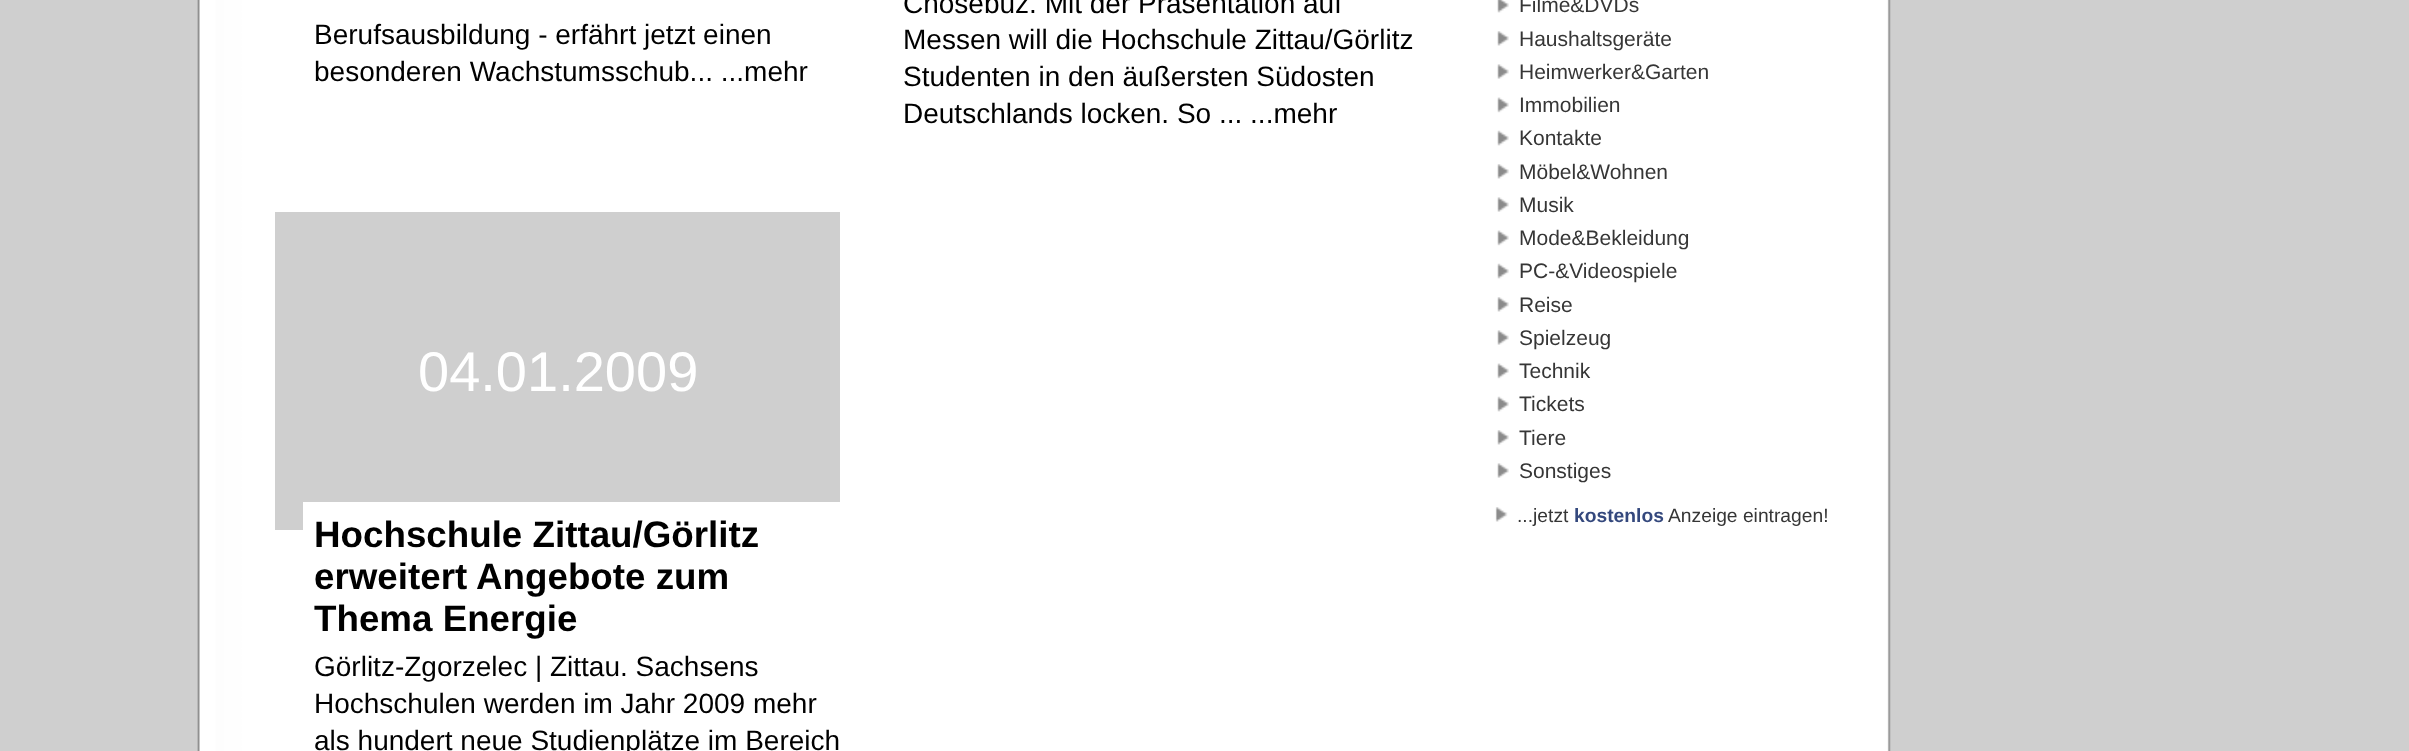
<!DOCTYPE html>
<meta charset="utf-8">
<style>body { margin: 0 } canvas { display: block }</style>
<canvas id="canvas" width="2409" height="751"></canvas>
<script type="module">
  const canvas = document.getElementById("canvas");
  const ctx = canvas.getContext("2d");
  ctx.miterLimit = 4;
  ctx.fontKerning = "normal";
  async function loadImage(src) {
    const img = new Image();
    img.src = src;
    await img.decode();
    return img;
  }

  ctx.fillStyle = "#cfcfcf";
  ctx.fillRect(0, 0, 2409, 751);
  ctx.drawImage(await loadImage("img1.png"), 182, 0, 1715, 751);
  ctx.font = "28px Liberation Sans";
  ctx.fillStyle = "#000000";
  ctx.fillText("Berufsausbildung - erfährt jetzt einen", 314, 44);
  ctx.fillText("besonderen Wachstumsschub... ...mehr", 314, 81);
  ctx.fillText("Chosebuz. Mit der Präsentation auf", 903, 13);
  ctx.fillText("Messen will die Hochschule Zittau/Görlitz", 903, 49);
  ctx.fillText("Studenten in den äußersten Südosten", 903, 86);
  ctx.fillText("Deutschlands locken. So ... ...mehr", 903, 123);
  ctx.fillStyle = "#cfcfcf";
  ctx.fillRect(275, 212, 565, 318);
  ctx.font = "56px Liberation Sans";
  ctx.fillStyle = "#ffffff";
  ctx.fillText("04.01.2009", 418, 391);
  ctx.fillRect(303, 502, 537, 28);
  ctx.font = "bold 36.75px Liberation Sans";
  ctx.fillStyle = "#000000";
  ctx.fillText("Hochschule Zittau/Görlitz", 314, 547);
  ctx.fillText("erweitert Angebote zum", 314, 589);
  ctx.fillText("Thema Energie", 314, 631);
  ctx.font = "28px Liberation Sans";
  ctx.fillText("Görlitz-Zgorzelec | Zittau. Sachsens", 314, 676);
  ctx.fillText("Hochschulen werden im Jahr 2009 mehr", 314, 713);
  ctx.fillText("als hundert neue Studienplätze im Bereich", 314, 750);
  ctx.drawImage(await loadImage("img2.png"), 1497, 0, 12, 13);
  ctx.font = "21px Liberation Sans";
  ctx.fillStyle = "#363636";
  ctx.fillText("Filme&DVDs", 1519, 12);
  ctx.drawImage(await loadImage("img3.png"), 1497, 31, 12, 15);
  ctx.fillText("Haushaltsgeräte", 1519, 46);
  ctx.drawImage(await loadImage("img4.png"), 1497, 64, 12, 15);
  ctx.fillText("Heimwerker&Garten", 1519, 79);
  ctx.drawImage(await loadImage("img5.png"), 1497, 97, 12, 16);
  ctx.fillText("Immobilien", 1519, 112);
  ctx.drawImage(await loadImage("img6.png"), 1497, 130, 12, 16);
  ctx.fillText("Kontakte", 1519, 145);
  ctx.drawImage(await loadImage("img3.png"), 1497, 164, 12, 15);
  ctx.fillText("Möbel&Wohnen", 1519, 179);
  ctx.drawImage(await loadImage("img4.png"), 1497, 197, 12, 15);
  ctx.fillText("Musik", 1519, 212);
  ctx.drawImage(await loadImage("img5.png"), 1497, 230, 12, 16);
  ctx.fillText("Mode&Bekleidung", 1519, 245);
  ctx.drawImage(await loadImage("img6.png"), 1497, 263, 12, 16);
  ctx.fillText("PC-&Videospiele", 1519, 278);
  ctx.drawImage(await loadImage("img3.png"), 1497, 297, 12, 15);
  ctx.fillText("Reise", 1519, 312);
  ctx.drawImage(await loadImage("img4.png"), 1497, 330, 12, 15);
  ctx.fillText("Spielzeug", 1519, 345);
  ctx.drawImage(await loadImage("img5.png"), 1497, 363, 12, 16);
  ctx.fillText("Technik", 1519, 378);
  ctx.drawImage(await loadImage("img6.png"), 1497, 396, 12, 16);
  ctx.fillText("Tickets", 1519, 411);
  ctx.drawImage(await loadImage("img3.png"), 1497, 430, 12, 15);
  ctx.fillText("Tiere", 1519, 445);
  ctx.drawImage(await loadImage("img4.png"), 1497, 463, 12, 15);
  ctx.fillText("Sonstiges", 1519, 478);
  ctx.drawImage(await loadImage("img7.png"), 1495, 507, 13, 15);
  ctx.font = "19.25px Liberation Sans";
  ctx.fillText("...jetzt", 1517, 522);
  ctx.font = "bold 19.25px Liberation Sans";
  ctx.fillStyle = "#34487d";
  ctx.fillText("kostenlos", 1574, 522);
  ctx.font = "19.25px Liberation Sans";
  ctx.fillStyle = "#363636";
  ctx.fillText("Anzeige eintragen!", 1668, 522);
</script>
